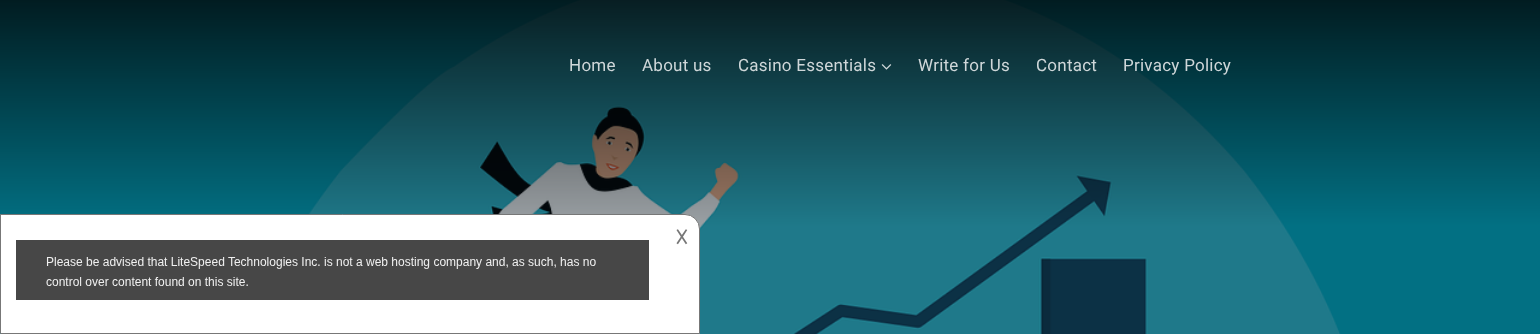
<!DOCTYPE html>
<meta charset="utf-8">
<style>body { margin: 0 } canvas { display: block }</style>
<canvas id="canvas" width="1540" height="334"></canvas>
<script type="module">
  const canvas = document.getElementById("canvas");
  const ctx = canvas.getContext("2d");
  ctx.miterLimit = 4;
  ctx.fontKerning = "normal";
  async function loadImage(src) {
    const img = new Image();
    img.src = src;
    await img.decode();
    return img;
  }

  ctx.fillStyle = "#ffffff";
  ctx.fillRect(0, 0, 1540, 334);
  ctx.drawImage(await loadImage("img1.png"), 0, 0, 1540, 334);
  ctx.letterSpacing = "0.25px";
  ctx.font = "17px Roboto";
  ctx.fillStyle = "#cfd7d9";
  ctx.fillText("Home", 569, 71);
  ctx.fillText("About us", 642, 71);
  ctx.fillText("Casino Essentials", 738, 71);
  ctx.drawImage(await loadImage("img2.png"), 881, 64, 11, 6);
  ctx.fillText("Write for Us", 918, 71);
  ctx.fillText("Contact", 1036, 71);
  ctx.fillText("Privacy Policy", 1123, 71);
  ctx.fillStyle = "#ffffff";
  ctx.beginPath();
  ctx.roundRect(0.5, 214.5, 699, 119, [0, 14.5, 0, 0]);
  ctx.fill();
  ctx.strokeStyle = "#777777";
  ctx.stroke();
  ctx.font = "20px DejaVu Sans";
  ctx.fillStyle = "#777777";
  ctx.fillText("𐌢", 675, 244);
  ctx.drawImage(await loadImage("img3.png"), 16, 240, 633, 60);
</script>
